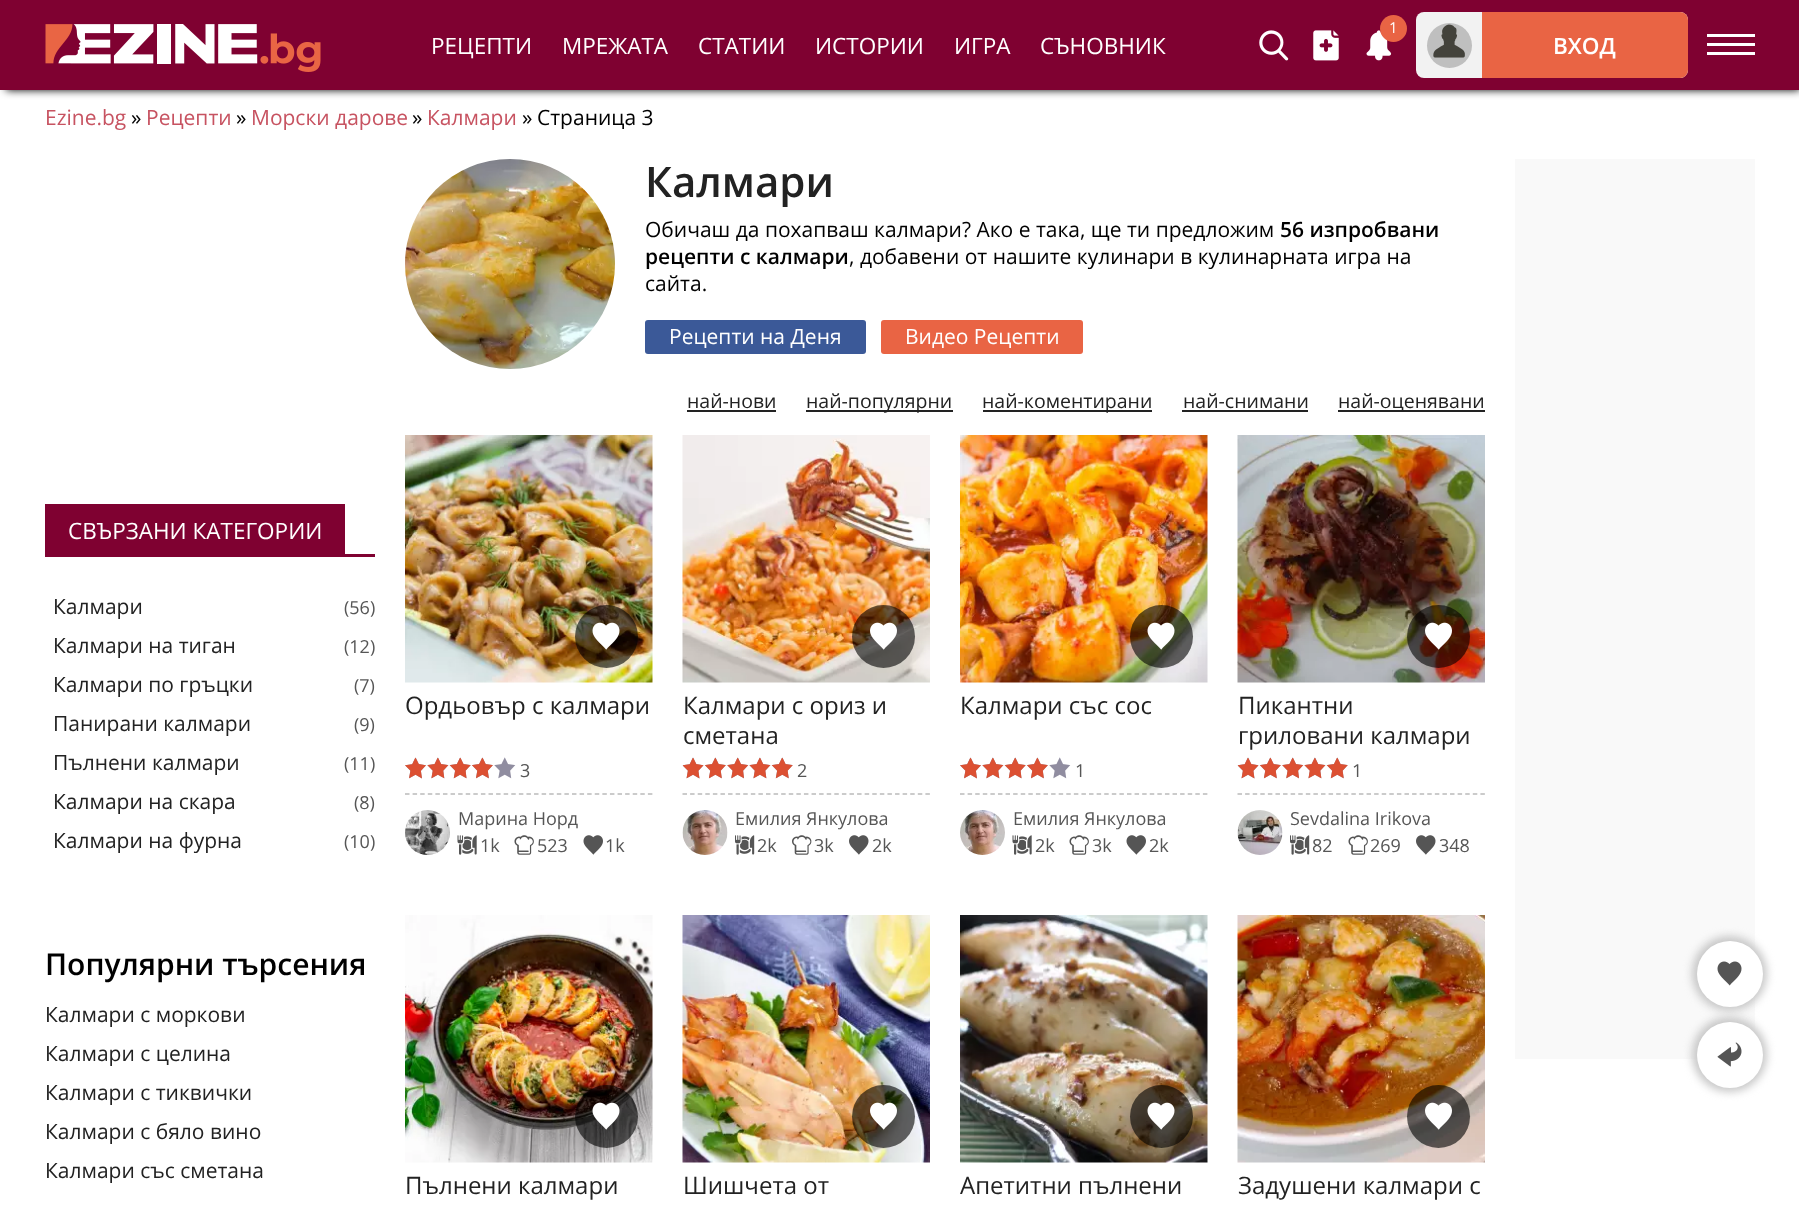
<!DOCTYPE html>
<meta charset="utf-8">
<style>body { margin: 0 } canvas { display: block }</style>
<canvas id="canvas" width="1799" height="1207"></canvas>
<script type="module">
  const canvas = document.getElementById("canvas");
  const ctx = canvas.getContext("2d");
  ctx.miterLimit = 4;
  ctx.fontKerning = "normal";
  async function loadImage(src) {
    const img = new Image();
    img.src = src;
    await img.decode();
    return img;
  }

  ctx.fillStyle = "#ffffff";
  ctx.fillRect(0, 0, 1799, 1207);
  ctx.fillStyle = "#000000";
  ctx.filter = "blur(4px)";
  ctx.beginPath();
  ctx.rect(6, 6, 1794, 84);
  ctx.fill();
  ctx.filter = "none";
  ctx.fillStyle = "#7f0131";
  ctx.fillRect(0, 0, 1799, 90);
  ctx.drawImage(await loadImage("img1.png"), 45, 24, 276, 48);
  ctx.font = "22.5px Open Sans";
  ctx.fillStyle = "#ffffff";
  ctx.fillText("РЕЦЕПТИ", 431, 54);
  ctx.fillText("МРЕЖАТА", 562, 54);
  ctx.fillText("СТАТИИ", 698, 54);
  ctx.fillText("ИСТОРИИ", 815, 54);
  ctx.fillText("ИГРА", 954, 54);
  ctx.fillText("СЪНОВНИК", 1040, 54);
  ctx.drawImage(await loadImage("img2.png"), 1366, 30, 26, 31);
  ctx.fillStyle = "#e96444";
  ctx.beginPath();
  ctx.arc(1393.5, 28.5, 13.5, 0, Math.PI * 2);
  ctx.fill();
  ctx.font = "15px Open Sans";
  ctx.fillStyle = "#ffffff";
  ctx.fillText("1", 1389, 33);
  ctx.drawImage(await loadImage("img3.png"), 1259, 30, 30, 31);
  ctx.drawImage(await loadImage("img4.png"), 1313, 30, 26, 31);
  ctx.fillStyle = "#f2f2f2";
  ctx.beginPath();
  ctx.roundRect(1416, 12, 272, 66, 8);
  ctx.fill();
  ctx.fillStyle = "#bfbfbf";
  ctx.beginPath();
  ctx.arc(1449.5, 45.5, 22.5, 0, Math.PI * 2);
  ctx.fill();
  ctx.drawImage(await loadImage("img5.png"), 1433, 24, 32, 34);
  ctx.fillStyle = "#e96444";
  ctx.beginPath();
  ctx.roundRect(1482, 12, 206, 66, [0, 8, 8, 0]);
  ctx.fill();
  ctx.font = "600 22.5px Open Sans";
  ctx.fillStyle = "#ffffff";
  ctx.fillText("ВХОД", 1553, 54);
  ctx.beginPath();
  ctx.moveTo(1707, 34);
  ctx.lineTo(1755, 34);
  ctx.lineTo(1755, 37);
  ctx.lineTo(1707, 37);
  ctx.closePath();
  ctx.moveTo(1707, 43);
  ctx.lineTo(1755, 43);
  ctx.lineTo(1755, 46);
  ctx.lineTo(1707, 46);
  ctx.closePath();
  ctx.moveTo(1707, 52);
  ctx.lineTo(1755, 52);
  ctx.lineTo(1755, 55);
  ctx.lineTo(1707, 55);
  ctx.closePath();
  ctx.fill();
  ctx.font = "21px Open Sans";
  ctx.fillStyle = "#c75361";
  ctx.fillText("Ezine.bg", 45, 125);
  ctx.fillStyle = "#000000";
  ctx.fillText("»", 131, 125);
  ctx.fillStyle = "#c75361";
  ctx.fillText("Рецепти", 146, 125);
  ctx.fillStyle = "#000000";
  ctx.fillText("»", 236, 125);
  ctx.fillStyle = "#c75361";
  ctx.fillText("Морски дарове", 251, 125);
  ctx.fillStyle = "#000000";
  ctx.fillText("»", 412, 125);
  ctx.fillStyle = "#c75361";
  ctx.fillText("Калмари", 427, 125);
  ctx.fillStyle = "#000000";
  ctx.fillText("»", 522, 125);
  ctx.save();
  ctx.beginPath();
  ctx.rect(537, 105, 116, 24);
  ctx.clip();
  ctx.fillText("Страница 3", 537, 125);
  ctx.restore();
  ctx.fillStyle = "#7f0131";
  ctx.fillRect(45, 554, 330, 3);
  ctx.fillRect(45, 504, 300, 50);
  ctx.font = "22.5px Open Sans";
  ctx.fillStyle = "#ffffff";
  ctx.fillText("СВЪРЗАНИ КАТЕГОРИИ", 68, 539);
  ctx.font = "21px Open Sans";
  ctx.fillStyle = "#222222";
  ctx.fillText("Калмари", 53, 614);
  ctx.font = "18px Open Sans";
  ctx.fillStyle = "#565656";
  ctx.fillText("(56)", 344, 614);
  ctx.font = "21px Open Sans";
  ctx.fillStyle = "#222222";
  ctx.fillText("Калмари на тиган", 53, 653);
  ctx.font = "18px Open Sans";
  ctx.fillStyle = "#565656";
  ctx.fillText("(12)", 344, 653);
  ctx.font = "21px Open Sans";
  ctx.fillStyle = "#222222";
  ctx.fillText("Калмари по гръцки", 53, 692);
  ctx.font = "18px Open Sans";
  ctx.fillStyle = "#565656";
  ctx.fillText("(7)", 354, 692);
  ctx.font = "21px Open Sans";
  ctx.fillStyle = "#222222";
  ctx.fillText("Панирани калмари", 53, 731);
  ctx.font = "18px Open Sans";
  ctx.fillStyle = "#565656";
  ctx.fillText("(9)", 354, 731);
  ctx.font = "21px Open Sans";
  ctx.fillStyle = "#222222";
  ctx.fillText("Пълнени калмари", 53, 770);
  ctx.font = "18px Open Sans";
  ctx.fillStyle = "#565656";
  ctx.fillText("(11)", 344, 770);
  ctx.font = "21px Open Sans";
  ctx.fillStyle = "#222222";
  ctx.fillText("Калмари на скара", 53, 809);
  ctx.font = "18px Open Sans";
  ctx.fillStyle = "#565656";
  ctx.fillText("(8)", 354, 809);
  ctx.font = "21px Open Sans";
  ctx.fillStyle = "#222222";
  ctx.fillText("Калмари на фурна", 53, 848);
  ctx.font = "18px Open Sans";
  ctx.fillStyle = "#565656";
  ctx.fillText("(10)", 344, 848);
  ctx.font = "600 30px Open Sans";
  ctx.fillStyle = "#000000";
  ctx.fillText("Популярни търсения", 45, 975);
  ctx.font = "21px Open Sans";
  ctx.fillStyle = "#222222";
  ctx.fillText("Калмари с моркови", 45, 1022);
  ctx.fillText("Калмари с целина", 45, 1061);
  ctx.fillText("Калмари с тиквички", 45, 1100);
  ctx.fillText("Калмари с бяло вино", 45, 1139);
  ctx.fillText("Калмари със сметана", 45, 1178);
  ctx.drawImage(await loadImage("img6.png"), 405, 159, 210, 210);
  ctx.font = "600 42px Open Sans";
  ctx.fillText("Калмари", 645, 197);
  ctx.font = "21px Open Sans";
  ctx.fillStyle = "#000000";
  ctx.fillText("Обичаш да похапваш калмари? Ако е така, ще ти предложим", 645, 237);
  ctx.font = "600 21px Open Sans";
  ctx.fillText("56 изпробвани", 1280, 237);
  ctx.fillText("рецепти с калмари", 645, 264);
  ctx.font = "21px Open Sans";
  ctx.fillText(", добавени от нашите кулинари в кулинарната игра на", 849, 264);
  ctx.fillText("сайта.", 645, 291);
  ctx.fillStyle = "#3b5998";
  ctx.beginPath();
  ctx.roundRect(645, 320, 221, 34, 3);
  ctx.fill();
  ctx.fillStyle = "#ffffff";
  ctx.fillText("Рецепти на Деня", 669, 344);
  ctx.fillStyle = "#e96444";
  ctx.beginPath();
  ctx.roundRect(881, 320, 202, 34, 3);
  ctx.fill();
  ctx.fillStyle = "#ffffff";
  ctx.fillText("Видео Рецепти", 905, 344);
  ctx.font = "19.5px Open Sans";
  ctx.fillStyle = "#222222";
  ctx.fillText("най-нови", 687, 408);
  ctx.fillRect(687, 410, 89, 2);
  ctx.fillRect(806, 410, 147, 2);
  ctx.fillText("най-популярни", 806, 408);
  ctx.fillRect(983, 410, 169, 2);
  ctx.fillText("най-коментирани", 982, 408);
  ctx.fillText("най-снимани", 1183, 408);
  ctx.fillRect(1182, 410, 126, 2);
  ctx.fillRect(1338, 410, 147, 2);
  ctx.fillText("най-оценявани", 1338, 408);
  ctx.drawImage(await loadImage("img7.png"), 405, 435, 248, 248);
  ctx.fillStyle = "rgba(0, 0, 0, 0.6)";
  ctx.beginPath();
  ctx.arc(606.5, 636.5, 31.5, 0, Math.PI * 2);
  ctx.fill();
  ctx.drawImage(await loadImage("img8.png"), 592, 622, 28, 28);
  ctx.font = "24px Open Sans";
  ctx.fillStyle = "#222222";
  ctx.fillText("Ордьовър с калмари", 405, 714);
  ctx.drawImage(await loadImage("img9.png"), 405, 757, 111, 22);
  ctx.drawImage(await loadImage("img10.png"), 405, 758, 88, 21);
  ctx.font = "18px Open Sans";
  ctx.fillStyle = "#565656";
  ctx.fillText("3", 520, 777);
  ctx.beginPath();
  ctx.moveTo(405, 794);
  ctx.lineTo(652.5, 794);
  ctx.strokeStyle = "#bbbbbb";
  ctx.lineWidth = 1.5;
  ctx.setLineDash([4.5, 3.09]);
  ctx.stroke();
  ctx.drawImage(await loadImage("img11.png"), 405, 810, 45, 45);
  ctx.fillText("Марина Норд", 458, 825);
  ctx.drawImage(await loadImage("img12.png"), 457, 835, 20, 20);
  ctx.fillText("1k", 480, 852);
  ctx.drawImage(await loadImage("img13.png"), 514, 835, 20, 20);
  ctx.fillText("523", 537, 852);
  ctx.drawImage(await loadImage("img14.png"), 583, 835, 20, 20);
  ctx.fillText("1k", 605, 852);
  ctx.drawImage(await loadImage("img15.png"), 682, 435, 248, 248);
  ctx.fillStyle = "rgba(0, 0, 0, 0.6)";
  ctx.beginPath();
  ctx.arc(883.5, 636.5, 31.5, 0, Math.PI * 2);
  ctx.fill();
  ctx.drawImage(await loadImage("img16.png"), 870, 622, 27, 28);
  ctx.font = "24px Open Sans";
  ctx.fillStyle = "#222222";
  ctx.fillText("Калмари с ориз и", 683, 714);
  ctx.fillText("сметана", 683, 744);
  ctx.drawImage(await loadImage("img17.png"), 682, 757, 111, 22);
  ctx.drawImage(await loadImage("img18.png"), 683, 758, 110, 21);
  ctx.font = "18px Open Sans";
  ctx.fillStyle = "#565656";
  ctx.fillText("2", 797, 777);
  ctx.beginPath();
  ctx.moveTo(682.5, 794);
  ctx.lineTo(930, 794);
  ctx.stroke();
  ctx.drawImage(await loadImage("img19.png"), 682, 810, 46, 45);
  ctx.fillText("Емилия Янкулова", 735, 825);
  ctx.drawImage(await loadImage("img20.png"), 735, 835, 20, 20);
  ctx.fillText("2k", 757, 852);
  ctx.drawImage(await loadImage("img21.png"), 792, 835, 20, 20);
  ctx.fillText("3k", 814, 852);
  ctx.drawImage(await loadImage("img22.png"), 849, 835, 20, 20);
  ctx.fillText("2k", 872, 852);
  ctx.drawImage(await loadImage("img23.png"), 960, 435, 248, 248);
  ctx.fillStyle = "rgba(0, 0, 0, 0.6)";
  ctx.beginPath();
  ctx.arc(1161.5, 636.5, 31.5, 0, Math.PI * 2);
  ctx.fill();
  ctx.drawImage(await loadImage("img24.png"), 1147, 622, 28, 28);
  ctx.font = "24px Open Sans";
  ctx.fillStyle = "#222222";
  ctx.fillText("Калмари със сос", 960, 714);
  ctx.drawImage(await loadImage("img9.png"), 960, 757, 111, 22);
  ctx.drawImage(await loadImage("img10.png"), 960, 758, 88, 21);
  ctx.font = "18px Open Sans";
  ctx.fillStyle = "#565656";
  ctx.fillText("1", 1075, 777);
  ctx.beginPath();
  ctx.moveTo(960, 794);
  ctx.lineTo(1207.5, 794);
  ctx.stroke();
  ctx.drawImage(await loadImage("img25.png"), 960, 810, 45, 45);
  ctx.fillText("Емилия Янкулова", 1013, 825);
  ctx.drawImage(await loadImage("img12.png"), 1012, 835, 20, 20);
  ctx.fillText("2k", 1035, 852);
  ctx.drawImage(await loadImage("img13.png"), 1069, 835, 20, 20);
  ctx.fillText("3k", 1092, 852);
  ctx.drawImage(await loadImage("img14.png"), 1126, 835, 20, 20);
  ctx.fillText("2k", 1149, 852);
  ctx.drawImage(await loadImage("img26.png"), 1237, 435, 248, 248);
  ctx.fillStyle = "rgba(0, 0, 0, 0.6)";
  ctx.beginPath();
  ctx.arc(1438.5, 636.5, 31.5, 0, Math.PI * 2);
  ctx.fill();
  ctx.drawImage(await loadImage("img27.png"), 1425, 622, 27, 28);
  ctx.font = "24px Open Sans";
  ctx.fillStyle = "#222222";
  ctx.fillText("Пикантни", 1238, 714);
  ctx.fillText("гриловани калмари", 1238, 744);
  ctx.drawImage(await loadImage("img17.png"), 1237, 757, 111, 22);
  ctx.drawImage(await loadImage("img18.png"), 1238, 758, 110, 21);
  ctx.font = "18px Open Sans";
  ctx.fillStyle = "#565656";
  ctx.fillText("1", 1352, 777);
  ctx.beginPath();
  ctx.moveTo(1237.5, 794);
  ctx.lineTo(1485, 794);
  ctx.stroke();
  ctx.drawImage(await loadImage("img28.png"), 1237, 810, 46, 45);
  ctx.fillText("Sevdalina Irikova", 1290, 825);
  ctx.drawImage(await loadImage("img20.png"), 1290, 835, 20, 20);
  ctx.fillText("82", 1312, 852);
  ctx.drawImage(await loadImage("img13.png"), 1348, 835, 20, 20);
  ctx.fillText("269", 1370, 852);
  ctx.drawImage(await loadImage("img22.png"), 1416, 835, 20, 20);
  ctx.fillText("348", 1439, 852);
  ctx.drawImage(await loadImage("img29.png"), 405, 915, 248, 248);
  ctx.fillStyle = "rgba(0, 0, 0, 0.6)";
  ctx.beginPath();
  ctx.arc(606.5, 1116.5, 31.5, 0, Math.PI * 2);
  ctx.fill();
  ctx.drawImage(await loadImage("img30.png"), 592, 1102, 28, 28);
  ctx.font = "24px Open Sans";
  ctx.fillStyle = "#222222";
  ctx.fillText("Пълнени калмари", 405, 1194);
  ctx.drawImage(await loadImage("img31.png"), 682, 915, 248, 248);
  ctx.fillStyle = "rgba(0, 0, 0, 0.6)";
  ctx.beginPath();
  ctx.arc(883.5, 1116.5, 31.5, 0, Math.PI * 2);
  ctx.fill();
  ctx.drawImage(await loadImage("img32.png"), 870, 1102, 27, 28);
  ctx.fillStyle = "#222222";
  ctx.fillText("Шишчета от", 683, 1194);
  ctx.drawImage(await loadImage("img33.png"), 960, 915, 248, 248);
  ctx.fillStyle = "rgba(0, 0, 0, 0.6)";
  ctx.beginPath();
  ctx.arc(1161.5, 1116.5, 31.5, 0, Math.PI * 2);
  ctx.fill();
  ctx.drawImage(await loadImage("img34.png"), 1147, 1102, 28, 28);
  ctx.fillStyle = "#222222";
  ctx.fillText("Апетитни пълнени", 960, 1194);
  ctx.drawImage(await loadImage("img35.png"), 1237, 915, 248, 248);
  ctx.fillStyle = "rgba(0, 0, 0, 0.6)";
  ctx.beginPath();
  ctx.arc(1438.5, 1116.5, 31.5, 0, Math.PI * 2);
  ctx.fill();
  ctx.drawImage(await loadImage("img36.png"), 1425, 1102, 27, 28);
  ctx.fillStyle = "#222222";
  ctx.fillText("Задушени калмари с", 1238, 1194);
  ctx.fillStyle = "#f9f9f9";
  ctx.fillRect(1515, 159, 240, 900);
  ctx.fillStyle = "#c7c7c7";
  ctx.filter = "blur(4.5px)";
  ctx.beginPath();
  ctx.roundRect(1692, 1017, 75, 75, 37.5);
  ctx.fill();
  ctx.filter = "none";
  ctx.fillStyle = "#ffffff";
  ctx.beginPath();
  ctx.arc(1730, 1055, 33, 0, Math.PI * 2);
  ctx.fill();
  ctx.fillStyle = "#c7c7c7";
  ctx.filter = "blur(4.5px)";
  ctx.beginPath();
  ctx.roundRect(1692, 936, 75, 75, 37.5);
  ctx.fill();
  ctx.filter = "none";
  ctx.fillStyle = "#ffffff";
  ctx.beginPath();
  ctx.arc(1730, 974, 33, 0, Math.PI * 2);
  ctx.fill();
  ctx.drawImage(await loadImage("img37.png"), 1717, 961, 25, 25);
  ctx.drawImage(await loadImage("img38.png"), 1717, 1042, 25, 25);
</script>
